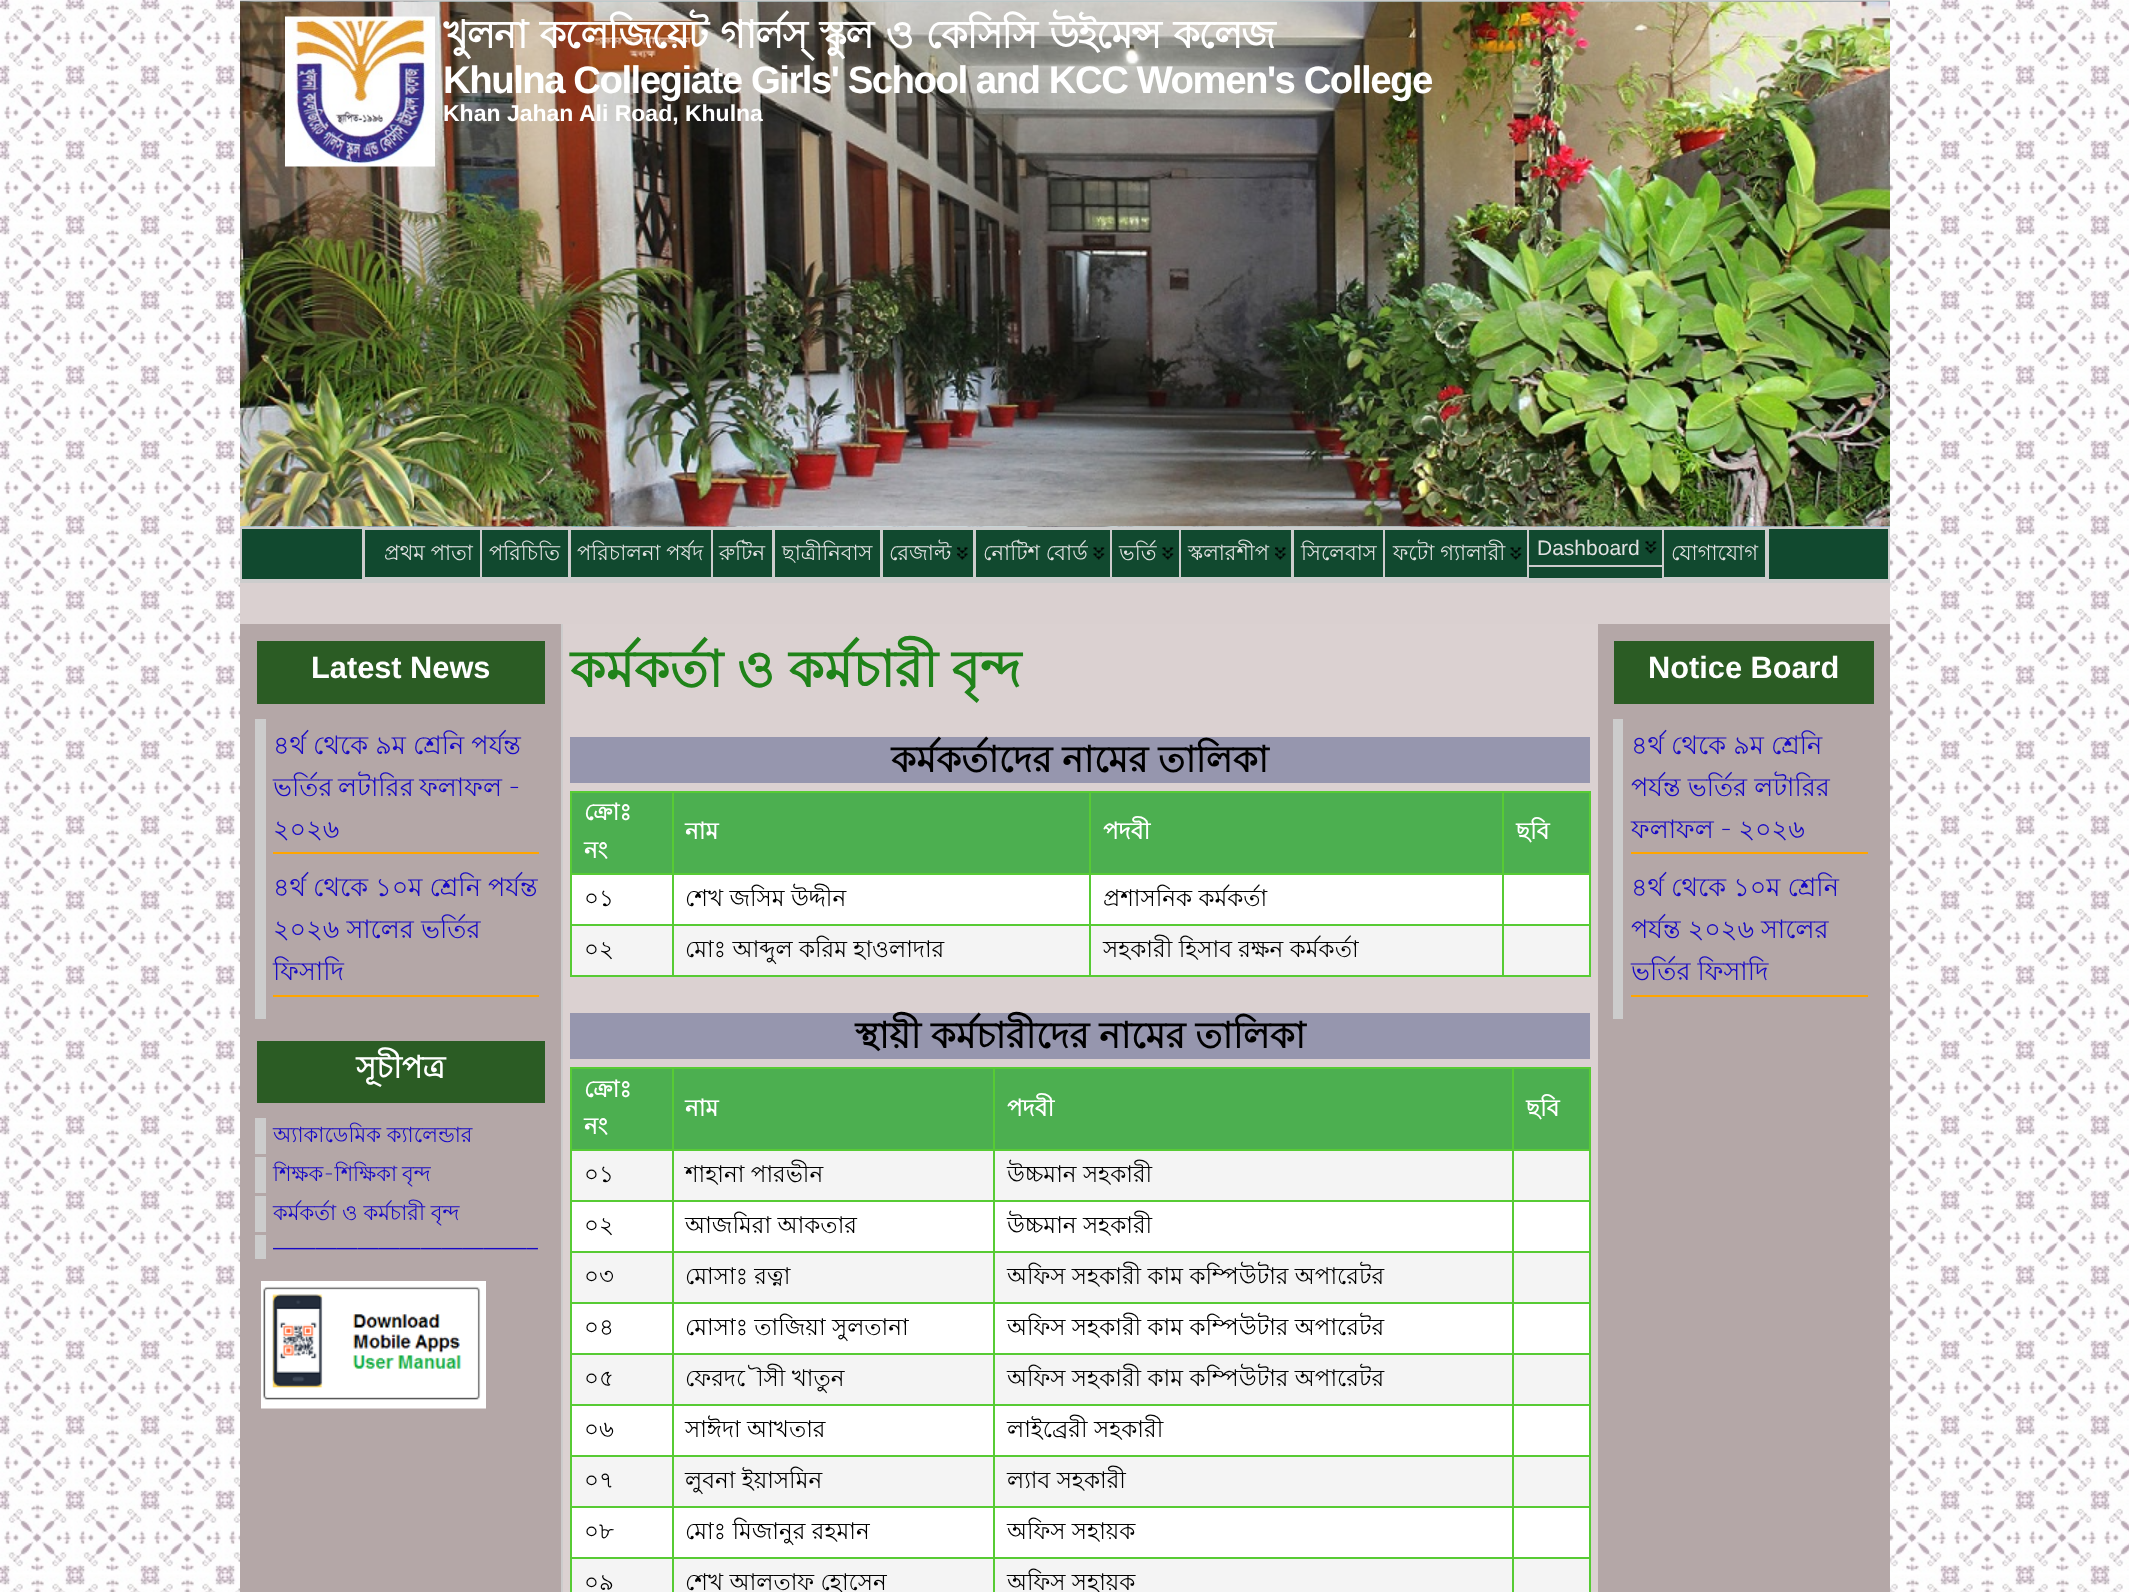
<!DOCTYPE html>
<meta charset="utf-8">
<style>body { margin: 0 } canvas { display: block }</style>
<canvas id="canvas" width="2129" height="1592"></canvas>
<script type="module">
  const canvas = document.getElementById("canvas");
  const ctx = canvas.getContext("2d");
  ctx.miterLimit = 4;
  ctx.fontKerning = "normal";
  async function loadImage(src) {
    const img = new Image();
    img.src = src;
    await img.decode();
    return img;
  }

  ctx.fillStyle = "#ffffff";
  ctx.fillRect(0, 0, 2129, 1592);
  ctx.drawImage(await loadImage("img1.png"), 0, 0, 2129, 1592);
  ctx.fillStyle = "#cccccc";
  ctx.fillRect(240, 0, 1650, 2);
  ctx.drawImage(await loadImage("img2.png"), 240, 1, 1650, 526);
  ctx.drawImage(await loadImage("img3.png"), 240, 1, 1650, 526);
  ctx.drawImage(await loadImage("img4.png"), 285, 16, 150, 151);
  ctx.letterSpacing = "-1.5px";
  ctx.wordSpacing = "4px";
  ctx.font = "bold 38.4px Lohit Bengali";
  ctx.fillStyle = "#ffffff";
  ctx.fillText("খুলনা কলেজিয়েট গার্লস্ স্কুল ও কেসিসি উইমেন্স কলেজ", 443, 48);
  ctx.wordSpacing = "0px";
  ctx.font = "bold 38.4px Liberation Sans";
  ctx.fillText("Khulna Collegiate Girls' School and KCC Women's College", 443, 93);
  ctx.letterSpacing = "0px";
  ctx.font = "bold 23px Liberation Sans";
  ctx.fillText("Khan Jahan Ali Road, Khulna", 443, 121);
  ctx.fillStyle = "#11492f";
  ctx.beginPath();
  ctx.rect(241, 528, 1648, 52);
  ctx.fill();
  ctx.strokeStyle = "#cccccc";
  ctx.lineWidth = 2;
  ctx.stroke();
  ctx.strokeRect(363, 529, 1405, 49);
  ctx.fillRect(1529, 577, 133, 1);
  ctx.strokeRect(364, 529, 117, 49);
  ctx.font = "21px Lohit Bengali";
  ctx.fillStyle = "#e1e1e1";
  ctx.fillText("প্রথম পাতা", 384, 560);
  ctx.strokeRect(481, 529, 88, 49);
  ctx.fillText("পরিচিতি", 489, 560);
  ctx.strokeRect(570, 529, 142, 49);
  ctx.fillText("পরিচালনা পর্ষদ", 577, 560);
  ctx.strokeRect(712, 529, 61, 49);
  ctx.fillText("রুটিন", 719, 560);
  ctx.strokeRect(774, 529, 107, 49);
  ctx.fillText("ছাত্রীনিবাস", 782, 560);
  ctx.drawImage(await loadImage("img5.png"), 957, 547, 11, 13);
  ctx.strokeRect(882, 529, 92, 49);
  ctx.fillText("রেজাল্ট", 889, 560);
  ctx.drawImage(await loadImage("img6.png"), 1093, 547, 12, 13);
  ctx.strokeRect(975, 529, 136, 49);
  ctx.fillText("নোটিশ বোর্ড", 983, 560);
  ctx.drawImage(await loadImage("img7.png"), 1162, 547, 12, 13);
  ctx.strokeRect(1111, 529, 69, 49);
  ctx.fillText("ভর্তি", 1119, 560);
  ctx.drawImage(await loadImage("img8.png"), 1275, 547, 11, 13);
  ctx.strokeRect(1180, 529, 112, 49);
  ctx.fillText("স্কলারশীপ", 1188, 560);
  ctx.strokeRect(1293, 529, 91, 49);
  ctx.fillText("সিলেবাস", 1301, 560);
  ctx.drawImage(await loadImage("img7.png"), 1510, 547, 12, 13);
  ctx.strokeRect(1384, 529, 144, 49);
  ctx.fillText("ফটো গ্যালারী", 1393, 560);
  ctx.drawImage(await loadImage("img6.png"), 1645, 541, 12, 13);
  ctx.strokeRect(1528, 529, 135, 37);
  ctx.font = "21px Liberation Sans";
  ctx.fillText("Dashboard", 1537, 555);
  ctx.strokeRect(1663, 529, 103, 49);
  ctx.font = "21px Lohit Bengali";
  ctx.fillText("যোগাযোগ", 1671, 560);
  ctx.fillStyle = "#dad0d0";
  ctx.fillRect(240, 583, 1650, 41);
  ctx.fillStyle = "#cccccc";
  ctx.fillRect(240, 581, 1650, 2);
  ctx.fillStyle = "#b4a7a7";
  ctx.fillRect(240, 624, 321, 968);
  ctx.fillStyle = "#cccccc";
  ctx.fillRect(561, 624, 2, 968);
  ctx.fillStyle = "#2b5c24";
  ctx.fillRect(257, 641, 288, 63);
  ctx.font = "bold 30.75px Liberation Sans";
  ctx.fillStyle = "#ffffff";
  ctx.fillText("Latest News", 311, 678);
  ctx.fillStyle = "#cccccc";
  ctx.fillRect(255, 719, 11, 300);
  ctx.fillStyle = "#ffa500";
  ctx.fillRect(273, 852, 266, 2);
  ctx.font = "25.5px Lohit Bengali";
  ctx.fillStyle = "#190ac4";
  ctx.fillText("৪র্থ থেকে ৯ম শ্রেনি পর্যন্ত", 273, 754);
  ctx.wordSpacing = "-1.5px";
  ctx.fillText("ভর্তির লটারির ফলাফল -", 273, 796);
  ctx.wordSpacing = "0px";
  ctx.fillText("২০২৬", 273, 838);
  ctx.fillStyle = "#ffa500";
  ctx.fillRect(273, 995, 266, 2);
  ctx.fillStyle = "#190ac4";
  ctx.fillText("৪র্থ থেকে ১০ম শ্রেনি পর্যন্ত", 273, 896);
  ctx.fillText("২০২৬ সালের ভর্তির", 273, 938);
  ctx.fillText("ফিসাদি", 273, 980);
  ctx.fillStyle = "#2b5c24";
  ctx.fillRect(257, 1041, 288, 62);
  ctx.font = "bold 30.75px Lohit Bengali";
  ctx.fillStyle = "#ffffff";
  ctx.fillText("সূচীপত্র", 356, 1078);
  ctx.fillStyle = "#cccccc";
  ctx.fillRect(255, 1118, 11, 36);
  ctx.font = "21.1px Lohit Bengali";
  ctx.fillStyle = "#190ac4";
  ctx.fillText("অ্যাকাডেমিক ক্যালেন্ডার", 273, 1142);
  ctx.fillStyle = "#cccccc";
  ctx.fillRect(255, 1157, 11, 36);
  ctx.wordSpacing = "-1px";
  ctx.fillStyle = "#190ac4";
  ctx.fillText("শিক্ষক-শিক্ষিকা বৃন্দ", 273, 1181);
  ctx.fillStyle = "#cccccc";
  ctx.fillRect(255, 1196, 11, 36);
  ctx.wordSpacing = "0px";
  ctx.fillStyle = "#190ac4";
  ctx.fillText("কর্মকর্তা ও কর্মচারী বৃন্দ", 273, 1220);
  ctx.fillStyle = "#cccccc";
  ctx.fillRect(255, 1235, 11, 24);
  ctx.font = "21.1px Liberation Sans";
  ctx.fillStyle = "#190ac4";
  ctx.fillText("————————————–", 273, 1254);
  ctx.drawImage(await loadImage("img9.png"), 261, 1281, 225, 128);
  ctx.fillStyle = "#dbd1d1";
  ctx.fillRect(563, 624, 1035, 968);
  ctx.font = "bold 51px Lohit Bengali";
  ctx.fillStyle = "#1f8319";
  ctx.fillText("কর্মকর্তা ও কর্মচারী বৃন্দ", 570, 687);
  ctx.fillStyle = "#9696ae";
  ctx.fillRect(570, 737, 1020, 46);
  ctx.font = "bold 36px Lohit Bengali";
  ctx.fillStyle = "#000000";
  ctx.fillText("কর্মকর্তাদের নামের তালিকা", 891, 772);
  ctx.fillStyle = "#4caf50";
  ctx.fillRect(572, 793, 100, 80);
  ctx.fillStyle = "#57cb34";
  ctx.fillRect(1502, 791, 88, 2);
  ctx.fillRect(1502, 873, 88, 2);
  ctx.fillRect(1502, 924, 88, 2);
  ctx.fillRect(1589, 924, 2, 53);
  ctx.fillRect(1502, 975, 88, 2);
  ctx.fillRect(1502, 924, 2, 53);
  ctx.fillRect(1089, 924, 414, 2);
  ctx.fillRect(1502, 873, 2, 53);
  ctx.fillRect(1089, 873, 414, 2);
  ctx.fillRect(1502, 791, 2, 84);
  ctx.fillRect(1089, 791, 414, 2);
  ctx.fillRect(1089, 975, 414, 2);
  ctx.fillRect(1089, 924, 2, 53);
  ctx.fillRect(672, 924, 419, 2);
  ctx.fillRect(1089, 873, 2, 53);
  ctx.fillRect(672, 873, 419, 2);
  ctx.fillRect(1089, 791, 2, 84);
  ctx.fillRect(672, 791, 419, 2);
  ctx.fillRect(672, 975, 419, 2);
  ctx.fillRect(672, 924, 2, 53);
  ctx.fillRect(570, 924, 104, 2);
  ctx.fillRect(672, 873, 2, 53);
  ctx.fillRect(570, 873, 104, 2);
  ctx.fillRect(672, 791, 2, 84);
  ctx.fillRect(570, 791, 104, 2);
  ctx.fillRect(570, 975, 104, 2);
  ctx.fillRect(570, 924, 2, 53);
  ctx.fillRect(570, 873, 2, 53);
  ctx.fillRect(570, 791, 2, 84);
  ctx.font = "bold 23px Lohit Bengali";
  ctx.fillStyle = "#ffffff";
  ctx.fillText("ক্রোঃ", 584, 820);
  ctx.fillText("নং", 584, 858);
  ctx.fillStyle = "#4caf50";
  ctx.fillRect(674, 793, 415, 80);
  ctx.fillStyle = "#ffffff";
  ctx.fillText("নাম", 685, 839);
  ctx.fillStyle = "#4caf50";
  ctx.fillRect(1091, 793, 411, 80);
  ctx.fillStyle = "#ffffff";
  ctx.fillText("পদবী", 1103, 839);
  ctx.fillStyle = "#4caf50";
  ctx.fillRect(1504, 793, 85, 80);
  ctx.fillStyle = "#57cb34";
  ctx.fillRect(1589, 873, 2, 53);
  ctx.fillRect(1589, 791, 2, 84);
  ctx.fillStyle = "#ffffff";
  ctx.fillText("ছবি", 1516, 839);
  ctx.fillRect(572, 875, 100, 49);
  ctx.font = "23px Lohit Bengali";
  ctx.fillStyle = "#000000";
  ctx.fillText("০১", 584, 906);
  ctx.fillStyle = "#ffffff";
  ctx.fillRect(674, 875, 415, 49);
  ctx.fillStyle = "#000000";
  ctx.fillText("শেখ জসিম উদ্দীন", 685, 906);
  ctx.fillStyle = "#ffffff";
  ctx.fillRect(1091, 875, 411, 49);
  ctx.fillStyle = "#000000";
  ctx.fillText("প্রশাসনিক কর্মকর্তা", 1103, 906);
  ctx.fillStyle = "#ffffff";
  ctx.fillRect(1504, 875, 85, 49);
  ctx.fillStyle = "#f4f4f4";
  ctx.fillRect(572, 926, 100, 49);
  ctx.fillStyle = "#000000";
  ctx.fillText("০২", 584, 957);
  ctx.fillStyle = "#f4f4f4";
  ctx.fillRect(674, 926, 415, 49);
  ctx.fillStyle = "#000000";
  ctx.fillText("মোঃ আব্দুল করিম হাওলাদার", 685, 957);
  ctx.fillStyle = "#f4f4f4";
  ctx.fillRect(1091, 926, 411, 49);
  ctx.fillStyle = "#000000";
  ctx.fillText("সহকারী হিসাব রক্ষন কর্মকর্তা", 1103, 957);
  ctx.fillStyle = "#f4f4f4";
  ctx.fillRect(1504, 926, 85, 49);
  ctx.fillStyle = "#9696ae";
  ctx.fillRect(570, 1013, 1020, 46);
  ctx.font = "bold 36px Lohit Bengali";
  ctx.fillStyle = "#000000";
  ctx.fillText("স্থায়ী কর্মচারীদের নামের তালিকা", 855, 1048);
  ctx.fillStyle = "#4caf50";
  ctx.fillRect(572, 1069, 100, 80);
  ctx.fillStyle = "#57cb34";
  ctx.fillRect(1512, 1067, 78, 2);
  ctx.fillRect(1512, 1149, 78, 2);
  ctx.fillRect(1512, 1200, 78, 2);
  ctx.fillRect(1512, 1251, 78, 2);
  ctx.fillRect(1512, 1302, 78, 2);
  ctx.fillRect(1512, 1353, 78, 2);
  ctx.fillRect(1512, 1404, 78, 2);
  ctx.fillRect(1512, 1455, 78, 2);
  ctx.fillRect(1512, 1506, 78, 2);
  ctx.fillRect(1512, 1557, 78, 2);
  ctx.fillRect(1512, 1557, 2, 35);
  ctx.fillRect(993, 1557, 521, 2);
  ctx.fillRect(1512, 1506, 2, 53);
  ctx.fillRect(993, 1506, 521, 2);
  ctx.fillRect(1512, 1455, 2, 53);
  ctx.fillRect(993, 1455, 521, 2);
  ctx.fillRect(1512, 1404, 2, 53);
  ctx.fillRect(993, 1404, 521, 2);
  ctx.fillRect(1512, 1353, 2, 53);
  ctx.fillRect(993, 1353, 521, 2);
  ctx.fillRect(1512, 1302, 2, 53);
  ctx.fillRect(993, 1302, 521, 2);
  ctx.fillRect(1512, 1251, 2, 53);
  ctx.fillRect(993, 1251, 521, 2);
  ctx.fillRect(1512, 1200, 2, 53);
  ctx.fillRect(993, 1200, 521, 2);
  ctx.fillRect(1512, 1149, 2, 53);
  ctx.fillRect(993, 1149, 521, 2);
  ctx.fillRect(1512, 1067, 2, 84);
  ctx.fillRect(993, 1067, 521, 2);
  ctx.fillRect(993, 1557, 2, 35);
  ctx.fillRect(672, 1557, 323, 2);
  ctx.fillRect(993, 1506, 2, 53);
  ctx.fillRect(672, 1506, 323, 2);
  ctx.fillRect(993, 1455, 2, 53);
  ctx.fillRect(672, 1455, 323, 2);
  ctx.fillRect(993, 1404, 2, 53);
  ctx.fillRect(672, 1404, 323, 2);
  ctx.fillRect(993, 1353, 2, 53);
  ctx.fillRect(672, 1353, 323, 2);
  ctx.fillRect(993, 1302, 2, 53);
  ctx.fillRect(672, 1302, 323, 2);
  ctx.fillRect(993, 1251, 2, 53);
  ctx.fillRect(672, 1251, 323, 2);
  ctx.fillRect(993, 1200, 2, 53);
  ctx.fillRect(672, 1200, 323, 2);
  ctx.fillRect(993, 1149, 2, 53);
  ctx.fillRect(672, 1149, 323, 2);
  ctx.fillRect(993, 1067, 2, 84);
  ctx.fillRect(672, 1067, 323, 2);
  ctx.fillRect(672, 1557, 2, 35);
  ctx.fillRect(570, 1557, 104, 2);
  ctx.fillRect(672, 1506, 2, 53);
  ctx.fillRect(570, 1506, 104, 2);
  ctx.fillRect(672, 1455, 2, 53);
  ctx.fillRect(570, 1455, 104, 2);
  ctx.fillRect(672, 1404, 2, 53);
  ctx.fillRect(570, 1404, 104, 2);
  ctx.fillRect(672, 1353, 2, 53);
  ctx.fillRect(570, 1353, 104, 2);
  ctx.fillRect(672, 1302, 2, 53);
  ctx.fillRect(570, 1302, 104, 2);
  ctx.fillRect(672, 1251, 2, 53);
  ctx.fillRect(570, 1251, 104, 2);
  ctx.fillRect(672, 1200, 2, 53);
  ctx.fillRect(570, 1200, 104, 2);
  ctx.fillRect(672, 1149, 2, 53);
  ctx.fillRect(570, 1149, 104, 2);
  ctx.fillRect(672, 1067, 2, 84);
  ctx.fillRect(570, 1067, 104, 2);
  ctx.fillRect(570, 1557, 2, 35);
  ctx.fillRect(570, 1506, 2, 53);
  ctx.fillRect(570, 1455, 2, 53);
  ctx.fillRect(570, 1404, 2, 53);
  ctx.fillRect(570, 1353, 2, 53);
  ctx.fillRect(570, 1302, 2, 53);
  ctx.fillRect(570, 1251, 2, 53);
  ctx.fillRect(570, 1200, 2, 53);
  ctx.fillRect(570, 1149, 2, 53);
  ctx.fillRect(570, 1067, 2, 84);
  ctx.font = "bold 23px Lohit Bengali";
  ctx.fillStyle = "#ffffff";
  ctx.fillText("ক্রোঃ", 584, 1097);
  ctx.fillText("নং", 584, 1134);
  ctx.fillStyle = "#4caf50";
  ctx.fillRect(674, 1069, 319, 80);
  ctx.fillStyle = "#ffffff";
  ctx.fillText("নাম", 685, 1116);
  ctx.fillStyle = "#4caf50";
  ctx.fillRect(995, 1069, 517, 80);
  ctx.fillStyle = "#ffffff";
  ctx.fillText("পদবী", 1007, 1116);
  ctx.fillStyle = "#4caf50";
  ctx.fillRect(1514, 1069, 75, 80);
  ctx.fillStyle = "#57cb34";
  ctx.fillRect(1589, 1557, 2, 35);
  ctx.fillRect(1589, 1506, 2, 53);
  ctx.fillRect(1589, 1455, 2, 53);
  ctx.fillRect(1589, 1404, 2, 53);
  ctx.fillRect(1589, 1353, 2, 53);
  ctx.fillRect(1589, 1302, 2, 53);
  ctx.fillRect(1589, 1251, 2, 53);
  ctx.fillRect(1589, 1200, 2, 53);
  ctx.fillRect(1589, 1149, 2, 53);
  ctx.fillRect(1589, 1067, 2, 84);
  ctx.fillStyle = "#ffffff";
  ctx.fillText("ছবি", 1526, 1116);
  ctx.fillStyle = "#f4f4f4";
  ctx.fillRect(572, 1151, 100, 49);
  ctx.font = "23px Lohit Bengali";
  ctx.fillStyle = "#000000";
  ctx.fillText("০১", 584, 1182);
  ctx.fillStyle = "#f4f4f4";
  ctx.fillRect(674, 1151, 319, 49);
  ctx.fillStyle = "#000000";
  ctx.fillText("শাহানা পারভীন", 685, 1182);
  ctx.fillStyle = "#f4f4f4";
  ctx.fillRect(995, 1151, 517, 49);
  ctx.fillStyle = "#000000";
  ctx.fillText("উচ্চমান সহকারী", 1007, 1182);
  ctx.fillStyle = "#f4f4f4";
  ctx.fillRect(1514, 1151, 75, 49);
  ctx.fillStyle = "#ffffff";
  ctx.fillRect(572, 1202, 100, 49);
  ctx.fillStyle = "#000000";
  ctx.fillText("০২", 584, 1233);
  ctx.fillStyle = "#ffffff";
  ctx.fillRect(674, 1202, 319, 49);
  ctx.fillStyle = "#000000";
  ctx.fillText("আজমিরা আকতার", 685, 1233);
  ctx.fillStyle = "#ffffff";
  ctx.fillRect(995, 1202, 517, 49);
  ctx.fillStyle = "#000000";
  ctx.fillText("উচ্চমান সহকারী", 1007, 1233);
  ctx.fillStyle = "#ffffff";
  ctx.fillRect(1514, 1202, 75, 49);
  ctx.fillStyle = "#f4f4f4";
  ctx.fillRect(572, 1253, 100, 49);
  ctx.fillStyle = "#000000";
  ctx.fillText("০৩", 584, 1284);
  ctx.fillStyle = "#f4f4f4";
  ctx.fillRect(674, 1253, 319, 49);
  ctx.fillStyle = "#000000";
  ctx.fillText("মোসাঃ রত্না", 685, 1284);
  ctx.fillStyle = "#f4f4f4";
  ctx.fillRect(995, 1253, 517, 49);
  ctx.fillStyle = "#000000";
  ctx.fillText("অফিস সহকারী কাম কম্পিউটার অপারেটর", 1007, 1284);
  ctx.fillStyle = "#f4f4f4";
  ctx.fillRect(1514, 1253, 75, 49);
  ctx.fillStyle = "#ffffff";
  ctx.fillRect(572, 1304, 100, 49);
  ctx.fillStyle = "#000000";
  ctx.fillText("০৪", 584, 1335);
  ctx.fillStyle = "#ffffff";
  ctx.fillRect(674, 1304, 319, 49);
  ctx.fillStyle = "#000000";
  ctx.fillText("মোসাঃ তাজিয়া সুলতানা", 685, 1335);
  ctx.fillStyle = "#ffffff";
  ctx.fillRect(995, 1304, 517, 49);
  ctx.fillStyle = "#000000";
  ctx.fillText("অফিস সহকারী কাম কম্পিউটার অপারেটর", 1007, 1335);
  ctx.fillStyle = "#ffffff";
  ctx.fillRect(1514, 1304, 75, 49);
  ctx.fillStyle = "#f4f4f4";
  ctx.fillRect(572, 1355, 100, 49);
  ctx.fillStyle = "#000000";
  ctx.fillText("০৫", 584, 1386);
  ctx.fillStyle = "#f4f4f4";
  ctx.fillRect(674, 1355, 319, 49);
  ctx.fillStyle = "#000000";
  ctx.fillText("ফেরদৌসী খাতুন", 685, 1386);
  ctx.fillStyle = "#f4f4f4";
  ctx.fillRect(995, 1355, 517, 49);
  ctx.fillStyle = "#000000";
  ctx.fillText("অফিস সহকারী কাম কম্পিউটার অপারেটর", 1007, 1386);
  ctx.fillStyle = "#f4f4f4";
  ctx.fillRect(1514, 1355, 75, 49);
  ctx.fillStyle = "#ffffff";
  ctx.fillRect(572, 1406, 100, 49);
  ctx.fillStyle = "#000000";
  ctx.fillText("০৬", 584, 1437);
  ctx.fillStyle = "#ffffff";
  ctx.fillRect(674, 1406, 319, 49);
  ctx.fillStyle = "#000000";
  ctx.fillText("সাঈদা আখতার", 685, 1437);
  ctx.fillStyle = "#ffffff";
  ctx.fillRect(995, 1406, 517, 49);
  ctx.fillStyle = "#000000";
  ctx.fillText("লাইব্রেরী সহকারী", 1007, 1437);
  ctx.fillStyle = "#ffffff";
  ctx.fillRect(1514, 1406, 75, 49);
  ctx.fillStyle = "#f4f4f4";
  ctx.fillRect(572, 1457, 100, 49);
  ctx.fillStyle = "#000000";
  ctx.fillText("০৭", 584, 1488);
  ctx.fillStyle = "#f4f4f4";
  ctx.fillRect(674, 1457, 319, 49);
  ctx.fillStyle = "#000000";
  ctx.fillText("লুবনা ইয়াসমিন", 685, 1488);
  ctx.fillStyle = "#f4f4f4";
  ctx.fillRect(995, 1457, 517, 49);
  ctx.fillStyle = "#000000";
  ctx.fillText("ল্যাব সহকারী", 1007, 1488);
  ctx.fillStyle = "#f4f4f4";
  ctx.fillRect(1514, 1457, 75, 49);
  ctx.fillStyle = "#ffffff";
  ctx.fillRect(572, 1508, 100, 49);
  ctx.fillStyle = "#000000";
  ctx.fillText("০৮", 584, 1539);
  ctx.fillStyle = "#ffffff";
  ctx.fillRect(674, 1508, 319, 49);
  ctx.fillStyle = "#000000";
  ctx.fillText("মোঃ মিজানুর রহমান", 685, 1539);
  ctx.fillStyle = "#ffffff";
  ctx.fillRect(995, 1508, 517, 49);
  ctx.fillStyle = "#000000";
  ctx.fillText("অফিস সহায়ক", 1007, 1539);
  ctx.fillStyle = "#ffffff";
  ctx.fillRect(1514, 1508, 75, 49);
  ctx.fillStyle = "#f4f4f4";
  ctx.fillRect(572, 1559, 100, 33);
  ctx.fillStyle = "#000000";
  ctx.fillText("০৯", 584, 1590);
  ctx.fillStyle = "#f4f4f4";
  ctx.fillRect(674, 1559, 319, 33);
  ctx.fillStyle = "#000000";
  ctx.fillText("শেখ আলতাফ হোসেন", 685, 1590);
  ctx.fillStyle = "#f4f4f4";
  ctx.fillRect(995, 1559, 517, 33);
  ctx.fillStyle = "#000000";
  ctx.fillText("অফিস সহায়ক", 1007, 1590);
  ctx.fillStyle = "#f4f4f4";
  ctx.fillRect(1514, 1559, 75, 33);
  ctx.fillStyle = "#b4a7a7";
  ctx.fillRect(1598, 624, 292, 968);
  ctx.fillStyle = "#2b5c24";
  ctx.fillRect(1614, 641, 260, 63);
  ctx.font = "bold 30.75px Liberation Sans";
  ctx.fillStyle = "#ffffff";
  ctx.fillText("Notice Board", 1648, 678);
  ctx.fillStyle = "#cccccc";
  ctx.fillRect(1613, 719, 10, 300);
  ctx.fillStyle = "#ffa500";
  ctx.fillRect(1631, 852, 237, 2);
  ctx.font = "25.5px Lohit Bengali";
  ctx.fillStyle = "#190ac4";
  ctx.fillText("৪র্থ থেকে ৯ম শ্রেনি", 1631, 754);
  ctx.fillText("পর্যন্ত ভর্তির লটারির", 1631, 796);
  ctx.wordSpacing = "-1.5px";
  ctx.fillText("ফলাফল - ২০২৬", 1631, 838);
  ctx.fillStyle = "#ffa500";
  ctx.fillRect(1631, 995, 237, 2);
  ctx.wordSpacing = "0px";
  ctx.fillStyle = "#190ac4";
  ctx.fillText("৪র্থ থেকে ১০ম শ্রেনি", 1631, 896);
  ctx.fillText("পর্যন্ত ২০২৬ সালের", 1631, 938);
  ctx.fillText("ভর্তির ফিসাদি", 1631, 980);
</script>
